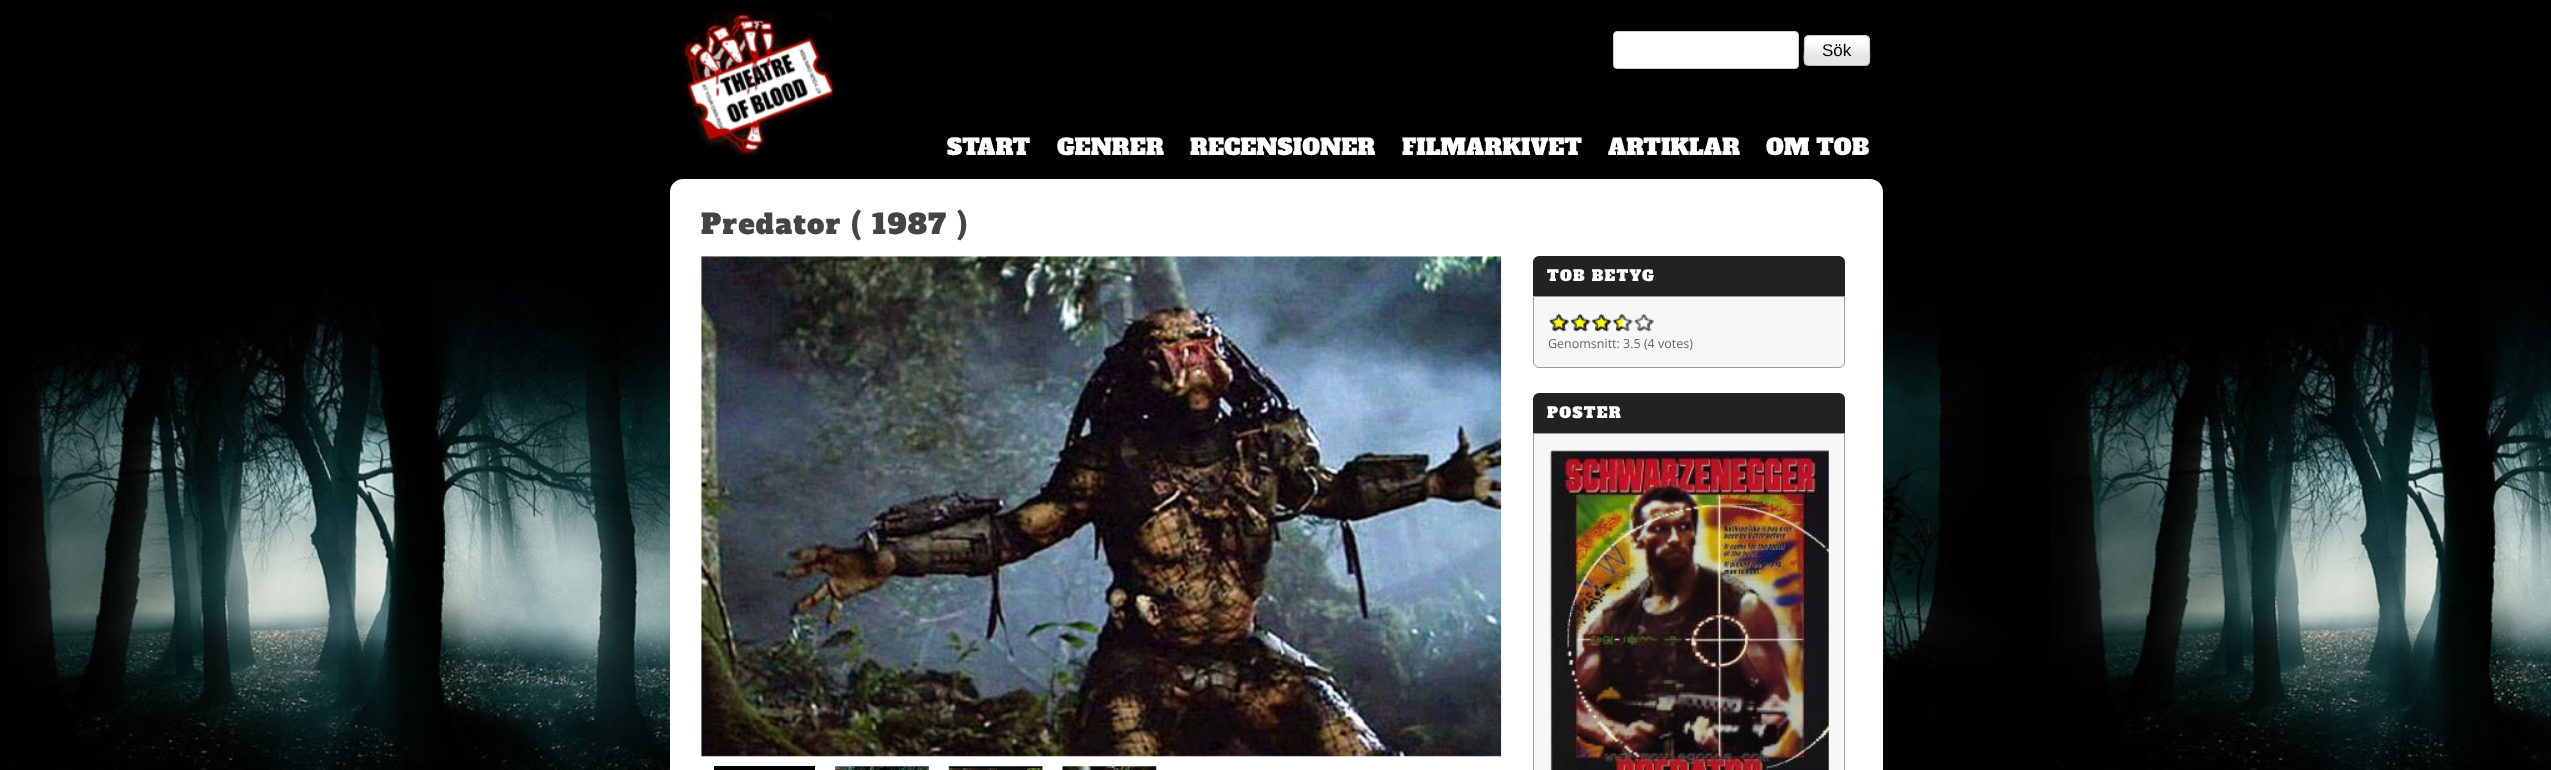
<!DOCTYPE html>
<meta charset="utf-8">
<style>body { margin: 0 } canvas { display: block }</style>
<canvas id="canvas" width="2551" height="770"></canvas>
<script type="module">
  const canvas = document.getElementById("canvas");
  const ctx = canvas.getContext("2d");
  ctx.miterLimit = 4;
  ctx.fontKerning = "normal";
  async function loadImage(src) {
    const img = new Image();
    img.src = src;
    await img.decode();
    return img;
  }
  let gradient;

  ctx.fillStyle = "#000000";
  ctx.fillRect(0, 0, 2551, 770);
  ctx.drawImage(await loadImage("img1.png"), 7, 278, 2544, 492);
  ctx.drawImage(await loadImage("img2.png"), 681, 12, 152, 144);
  ctx.fillStyle = "#ffffff";
  ctx.beginPath();
  ctx.roundRect(1613.5, 31.5, 185, 37, 3.5);
  ctx.fill();
  ctx.strokeStyle = "#cccccc";
  ctx.stroke();
  ctx.save();
  ctx.beginPath();
  ctx.roundRect(1804, 35, 66, 31, 5);
  ctx.clip();
  gradient = ctx.createLinearGradient(1805, 36, 1805, 7.5);
  gradient.addColorStop(0.3, "#e6e6e6");
  gradient.addColorStop(0.8, "#ffffff");
  ctx.fillStyle = gradient;
  ctx.fillRect(1804, 35, 66, 1);
  gradient = ctx.createLinearGradient(1805, 65, 1805, 36);
  gradient.addColorStop(0.3, "#e6e6e6");
  gradient.addColorStop(0.8, "#ffffff");
  ctx.fillStyle = gradient;
  ctx.fillRect(1804, 36, 66, 29);
  ctx.restore();
  ctx.beginPath();
  ctx.moveTo(1809, 38);
  ctx.lineTo(1865, 38);
  ctx.bezierCurveTo(1867, 38, 1869, 39, 1869, 41);
  ctx.bezierCurveTo(1869, 34, 1861, 36, 1856, 36);
  ctx.lineTo(1818, 36);
  ctx.bezierCurveTo(1813, 36, 1805, 34, 1805, 41);
  ctx.bezierCurveTo(1805, 39, 1807, 38, 1809, 38);
  ctx.closePath();
  ctx.fill();
  ctx.beginPath();
  ctx.moveTo(1868, 64.5);
  ctx.bezierCurveTo(1867.5, 65, 1866, 65.5, 1865, 65.5);
  ctx.lineTo(1809, 65.5);
  ctx.bezierCurveTo(1807.5, 65.5, 1806.5, 65, 1805.5, 64.5);
  ctx.strokeStyle = "#bbbbbb";
  ctx.lineWidth = 1.2;
  ctx.stroke();
  ctx.beginPath();
  ctx.moveTo(1805.5, 64.5);
  ctx.bezierCurveTo(1803, 61.5, 1804.5, 54, 1804.5, 50.5);
  ctx.bezierCurveTo(1804.5, 35, 1802.5, 35.5, 1818, 35.5);
  ctx.lineTo(1855.5, 35.5);
  ctx.bezierCurveTo(1871.5, 35.5, 1869.5, 35, 1869.5, 50.5);
  ctx.bezierCurveTo(1869.5, 54, 1870.5, 61.5, 1868, 64.5);
  ctx.strokeStyle = "#cccccc";
  ctx.stroke();
  ctx.font = "17px Liberation Sans";
  ctx.fillStyle = "#000000";
  ctx.fillText("Sök", 1822, 56);
  ctx.font = "22.5px Alfa Slab One";
  ctx.fillStyle = "#ffffff";
  ctx.fillText("START", 947, 155);
  ctx.fillText("GENRER", 1057, 155);
  ctx.fillText("RECENSIONER", 1190, 155);
  ctx.fillText("FILMARKIVET", 1402, 155);
  ctx.fillText("ARTIKLAR", 1608, 155);
  ctx.fillText("OM TOB", 1766, 155);
  ctx.beginPath();
  ctx.roundRect(670, 179, 1213, 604, 13);
  ctx.fill();
  ctx.letterSpacing = "1.25px";
  ctx.font = "27.5px Alfa Slab One";
  ctx.fillStyle = "#444444";
  ctx.fillText("Predator ( 1987 )", 701, 234);
  ctx.drawImage(await loadImage("img3.png"), 701, 256, 801, 501);
  ctx.strokeStyle = "#000000";
  ctx.lineWidth = 4;
  ctx.strokeRect(716, 768, 97, 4);
  ctx.drawImage(await loadImage("img4.png"), 835, 766, 94, 4);
  ctx.drawImage(await loadImage("img5.png"), 948, 766, 95, 4);
  ctx.drawImage(await loadImage("img6.png"), 1062, 766, 95, 4);
  ctx.fillStyle = "#222222";
  ctx.beginPath();
  ctx.roundRect(1533, 256, 312, 40, [6, 6, 0, 0]);
  ctx.fill();
  ctx.font = "15px Alfa Slab One";
  ctx.fillStyle = "#ffffff";
  ctx.fillText("TOB BETYG", 1547, 281);
  ctx.fillStyle = "#f7f7f7";
  ctx.beginPath();
  ctx.roundRect(1533.5, 296.5, 311, 71, [0, 0, 5.5, 5.5]);
  ctx.fill();
  ctx.strokeStyle = "#999999";
  ctx.lineWidth = 1;
  ctx.stroke();
  ctx.drawImage(await loadImage("img7.png"), 1549, 313, 20, 19);
  ctx.drawImage(await loadImage("img8.png"), 1549, 313, 20, 19);
  ctx.drawImage(await loadImage("img9.png"), 1570, 313, 21, 19);
  ctx.drawImage(await loadImage("img10.png"), 1570, 313, 21, 19);
  ctx.drawImage(await loadImage("img11.png"), 1591, 313, 21, 19);
  ctx.drawImage(await loadImage("img12.png"), 1591, 313, 21, 19);
  ctx.drawImage(await loadImage("img13.png"), 1612, 313, 21, 19);
  ctx.drawImage(await loadImage("img14.png"), 1613, 313, 10, 19);
  ctx.drawImage(await loadImage("img7.png"), 1634, 313, 20, 19);
  ctx.drawImage(await loadImage("img15.png"), 1634, 313, 20, 19);
  ctx.letterSpacing = "0px";
  ctx.font = "12.5px Open Sans";
  ctx.fillStyle = "#666666";
  ctx.fillText("Genomsnitt: 3.5 (4 votes)", 1548, 348);
  ctx.fillStyle = "#222222";
  ctx.beginPath();
  ctx.roundRect(1533, 393, 312, 40, [6, 6, 0, 0]);
  ctx.fill();
  ctx.letterSpacing = "1.25px";
  ctx.font = "15px Alfa Slab One";
  ctx.fillStyle = "#ffffff";
  ctx.fillText("POSTER", 1547, 418);
  ctx.fillStyle = "#f7f7f7";
  ctx.beginPath();
  ctx.rect(1533.5, 433.5, 311, 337);
  ctx.fill();
  ctx.stroke();
  ctx.drawImage(await loadImage("img16.png"), 1548, 448, 281, 322);
</script>
